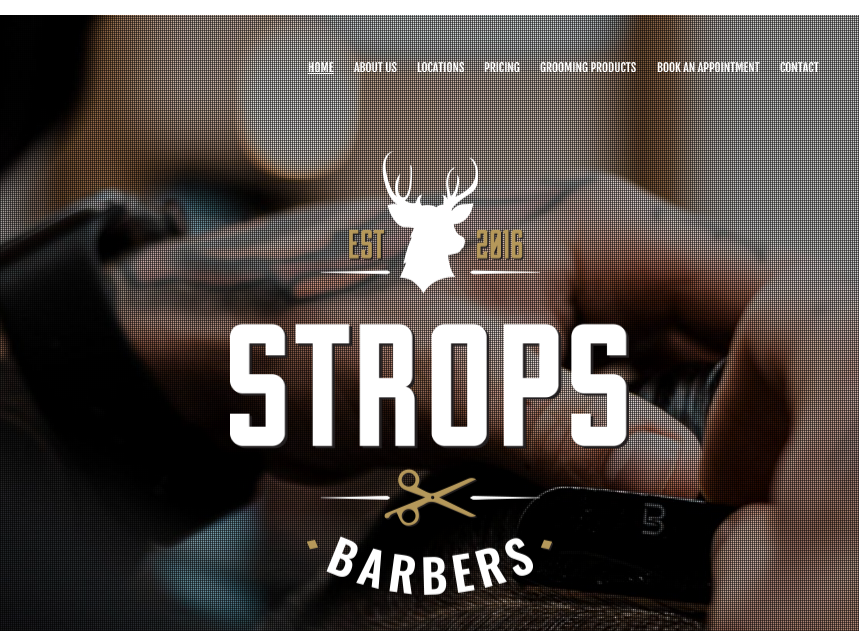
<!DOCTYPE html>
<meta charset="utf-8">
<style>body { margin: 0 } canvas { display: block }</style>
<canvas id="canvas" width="859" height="631"></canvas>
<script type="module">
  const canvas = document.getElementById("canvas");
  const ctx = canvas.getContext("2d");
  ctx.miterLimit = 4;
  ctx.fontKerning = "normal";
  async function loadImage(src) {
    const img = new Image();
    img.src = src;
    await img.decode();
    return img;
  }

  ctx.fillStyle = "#ffffff";
  ctx.fillRect(0, 0, 859, 631);
  ctx.drawImage(await loadImage("img1.png"), 0, 15, 859, 616);
  ctx.drawImage(await loadImage("img2.png"), 0, 15, 859, 616);
  ctx.drawImage(await loadImage("img3.png"), 320, 151, 220, 143);
  ctx.drawImage(await loadImage("img4.png"), 230, 323, 399, 126);
  ctx.drawImage(await loadImage("img5.png"), 307, 468, 246, 127);
  ctx.font = "11.75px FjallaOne";
  ctx.fillText("HOME", 308, 72);
  ctx.fillRect(308, 73, 26, 1);
  ctx.fillText("ABOUT US", 354, 72);
  ctx.fillText("LOCATIONS", 417, 72);
  ctx.fillText("PRICING", 484, 72);
  ctx.fillText("GROOMING PRODUCTS", 540, 72);
  ctx.fillText("BOOK AN APPOINTMENT", 657, 72);
  ctx.fillText("CONTACT", 780, 72);
</script>
